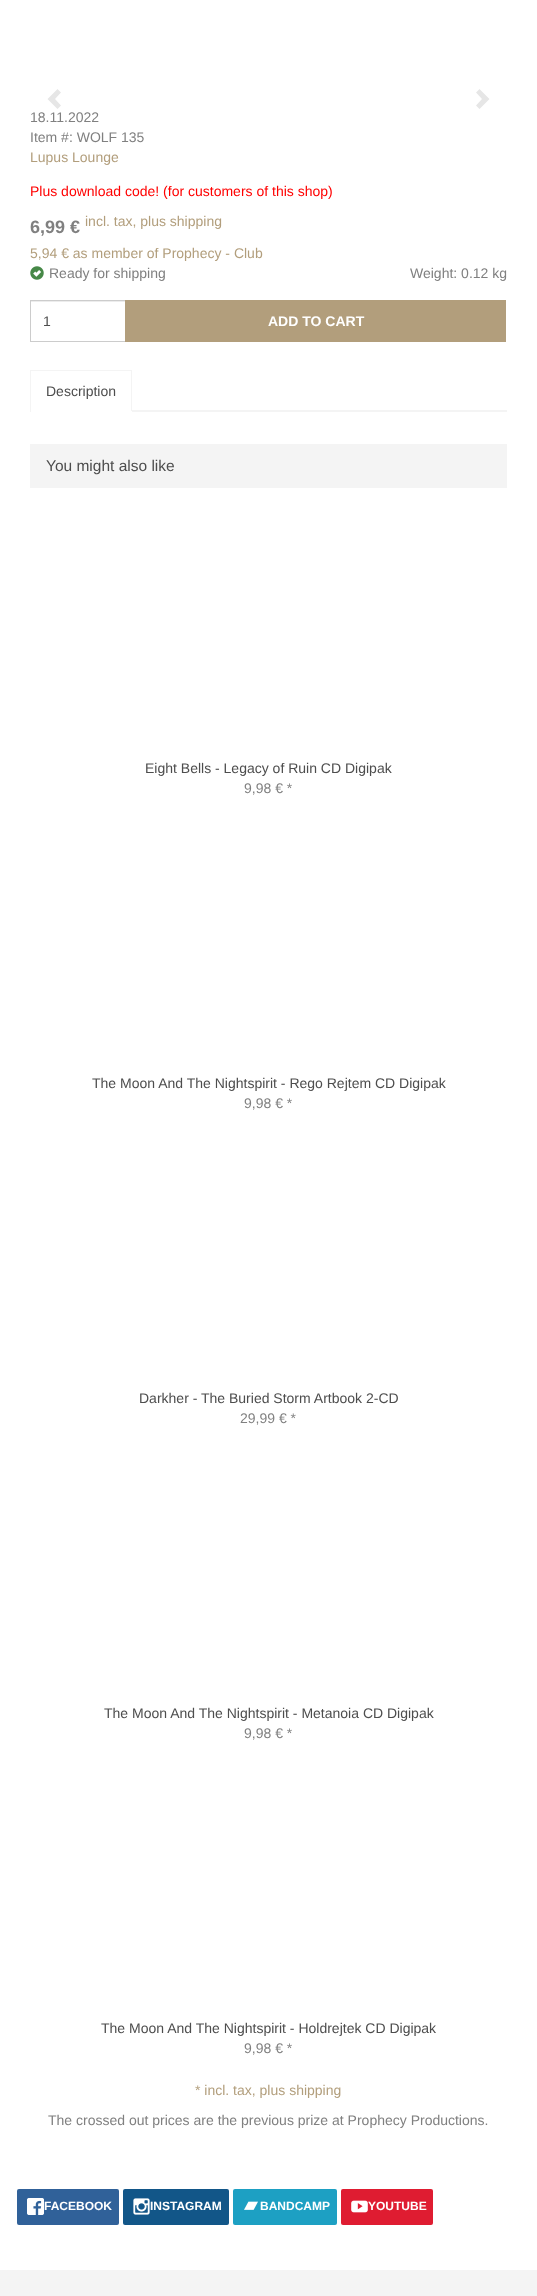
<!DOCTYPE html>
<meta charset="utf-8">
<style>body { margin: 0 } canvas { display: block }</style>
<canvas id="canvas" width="537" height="2296"></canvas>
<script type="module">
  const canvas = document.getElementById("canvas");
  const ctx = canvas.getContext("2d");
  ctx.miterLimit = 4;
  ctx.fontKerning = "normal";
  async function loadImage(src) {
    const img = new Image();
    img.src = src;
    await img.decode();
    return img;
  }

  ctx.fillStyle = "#ffffff";
  ctx.fillRect(0, 0, 537, 2296);
  ctx.fillStyle = "#e6e6e6";
  ctx.beginPath();
  ctx.moveTo(47.5, 99);
  ctx.lineTo(57.5, 89);
  ctx.lineTo(61, 92.5);
  ctx.lineTo(55, 99);
  ctx.lineTo(61, 105.5);
  ctx.lineTo(57.5, 109);
  ctx.closePath();
  ctx.fill();
  ctx.beginPath();
  ctx.moveTo(476, 105.5);
  ctx.lineTo(479.5, 109);
  ctx.lineTo(489.5, 99);
  ctx.lineTo(479.5, 89);
  ctx.lineTo(476, 92.5);
  ctx.lineTo(482, 99);
  ctx.closePath();
  ctx.fill();
  ctx.font = "14px Liberation Sans";
  ctx.fillStyle = "#808080";
  ctx.fillText("18.11.2022", 30, 122);
  ctx.fillText("Item #: WOLF 135", 30, 142);
  ctx.fillStyle = "#b29e7c";
  ctx.fillText("Lupus Lounge", 30, 162);
  ctx.fillStyle = "#ff0000";
  ctx.fillText("Plus download code! (for customers of this shop)", 30, 196);
  ctx.font = "bold 18px Liberation Sans";
  ctx.fillStyle = "#808080";
  ctx.fillText("6,99 €", 30, 233);
  ctx.font = "14px Liberation Sans";
  ctx.fillStyle = "#b29e7c";
  ctx.fillText("incl. tax, plus shipping", 85, 226);
  ctx.fillText("5,94 € as member of Prophecy - Club", 30, 258);
  ctx.drawImage(await loadImage("img1.png"), 30, 266, 14, 14);
  ctx.fillStyle = "#808080";
  ctx.fillText("Ready for shipping", 49, 278);
  ctx.fillText("Weight: 0.12 kg", 410, 278);
  ctx.fillStyle = "#ececec";
  ctx.fillRect(31, 301, 94, 1);
  ctx.fillStyle = "#cccccc";
  ctx.fillRect(30, 300, 95, 1);
  ctx.fillRect(30, 341, 95, 1);
  ctx.fillRect(30, 300, 1, 42);
  ctx.fillStyle = "#4d4d4d";
  ctx.fillText("1", 43, 326);
  ctx.fillStyle = "#b29e7c";
  ctx.fillRect(125, 300, 381, 42);
  ctx.font = "bold 14px Liberation Sans";
  ctx.fillStyle = "#ffffff";
  ctx.fillText("ADD TO CART", 268, 326);
  ctx.fillStyle = "#f4f4f4";
  ctx.fillRect(30, 370, 102, 1);
  ctx.fillRect(131, 370, 1, 42);
  ctx.fillStyle = "#ffffff";
  ctx.fillRect(131, 411, 1, 1);
  ctx.fillStyle = "#f4f4f4";
  ctx.fillRect(30, 370, 1, 42);
  ctx.font = "14px Liberation Sans";
  ctx.fillStyle = "#4d4d4d";
  ctx.fillText("Description", 46, 396);
  ctx.fillStyle = "#f4f4f4";
  ctx.fillRect(132, 410, 375, 2);
  ctx.fillRect(30, 444, 477, 44);
  ctx.font = "15.5px Liberation Sans";
  ctx.fillStyle = "#4d4d4d";
  ctx.fillText("You might also like", 46, 471);
  ctx.font = "14px Liberation Sans";
  ctx.fillText("Eight Bells - Legacy of Ruin CD Digipak", 145, 773);
  ctx.fillStyle = "#808080";
  ctx.fillText("9,98 € *", 244, 793);
  ctx.fillStyle = "#4d4d4d";
  ctx.fillText("The Moon And The Nightspirit - Rego Rejtem CD Digipak", 92, 1088);
  ctx.fillStyle = "#808080";
  ctx.fillText("9,98 € *", 244, 1108);
  ctx.fillStyle = "#4d4d4d";
  ctx.fillText("Darkher - The Buried Storm Artbook 2-CD", 139, 1403);
  ctx.fillStyle = "#808080";
  ctx.fillText("29,99 € *", 240, 1423);
  ctx.fillStyle = "#4d4d4d";
  ctx.fillText("The Moon And The Nightspirit - Metanoia CD Digipak", 104, 1718);
  ctx.fillStyle = "#808080";
  ctx.fillText("9,98 € *", 244, 1738);
  ctx.fillStyle = "#4d4d4d";
  ctx.fillText("The Moon And The Nightspirit - Holdrejtek CD Digipak", 101, 2033);
  ctx.fillStyle = "#808080";
  ctx.fillText("9,98 € *", 244, 2053);
  ctx.fillStyle = "#b29e7c";
  ctx.fillText("* incl. tax, plus shipping", 195, 2095);
  ctx.fillStyle = "#808080";
  ctx.fillText("The crossed out prices are the previous prize at Prophecy Productions.", 48, 2125);
  ctx.fillStyle = "#306199";
  ctx.beginPath();
  ctx.roundRect(17, 2189, 102, 36, 2);
  ctx.fill();
  ctx.drawImage(await loadImage("img2.png"), 27, 2198, 17, 17);
  ctx.font = "bold 12px Liberation Sans";
  ctx.fillStyle = "#ffffff";
  ctx.fillText("FACEBOOK", 44, 2210);
  ctx.fillStyle = "#125688";
  ctx.beginPath();
  ctx.roundRect(123, 2189, 106, 36, 2);
  ctx.fill();
  ctx.drawImage(await loadImage("img3.png"), 133, 2198, 17, 17);
  ctx.fillStyle = "#ffffff";
  ctx.fillText("INSTAGRAM", 150, 2210);
  ctx.fillStyle = "#1da0c3";
  ctx.beginPath();
  ctx.roundRect(233, 2189, 104, 36, 2);
  ctx.fill();
  ctx.drawImage(await loadImage("img4.png"), 244, 2201, 14, 9);
  ctx.fillStyle = "#ffffff";
  ctx.fillText("BANDCAMP", 260, 2210);
  ctx.fillStyle = "#df1c31";
  ctx.beginPath();
  ctx.roundRect(341, 2189, 92, 36, 2);
  ctx.fill();
  ctx.drawImage(await loadImage("img5.png"), 351, 2200, 17, 13);
  ctx.fillStyle = "#ffffff";
  ctx.fillText("YOUTUBE", 368, 2210);
  ctx.fillStyle = "#f4f4f4";
  ctx.fillRect(0, 2270, 537, 26);
</script>
